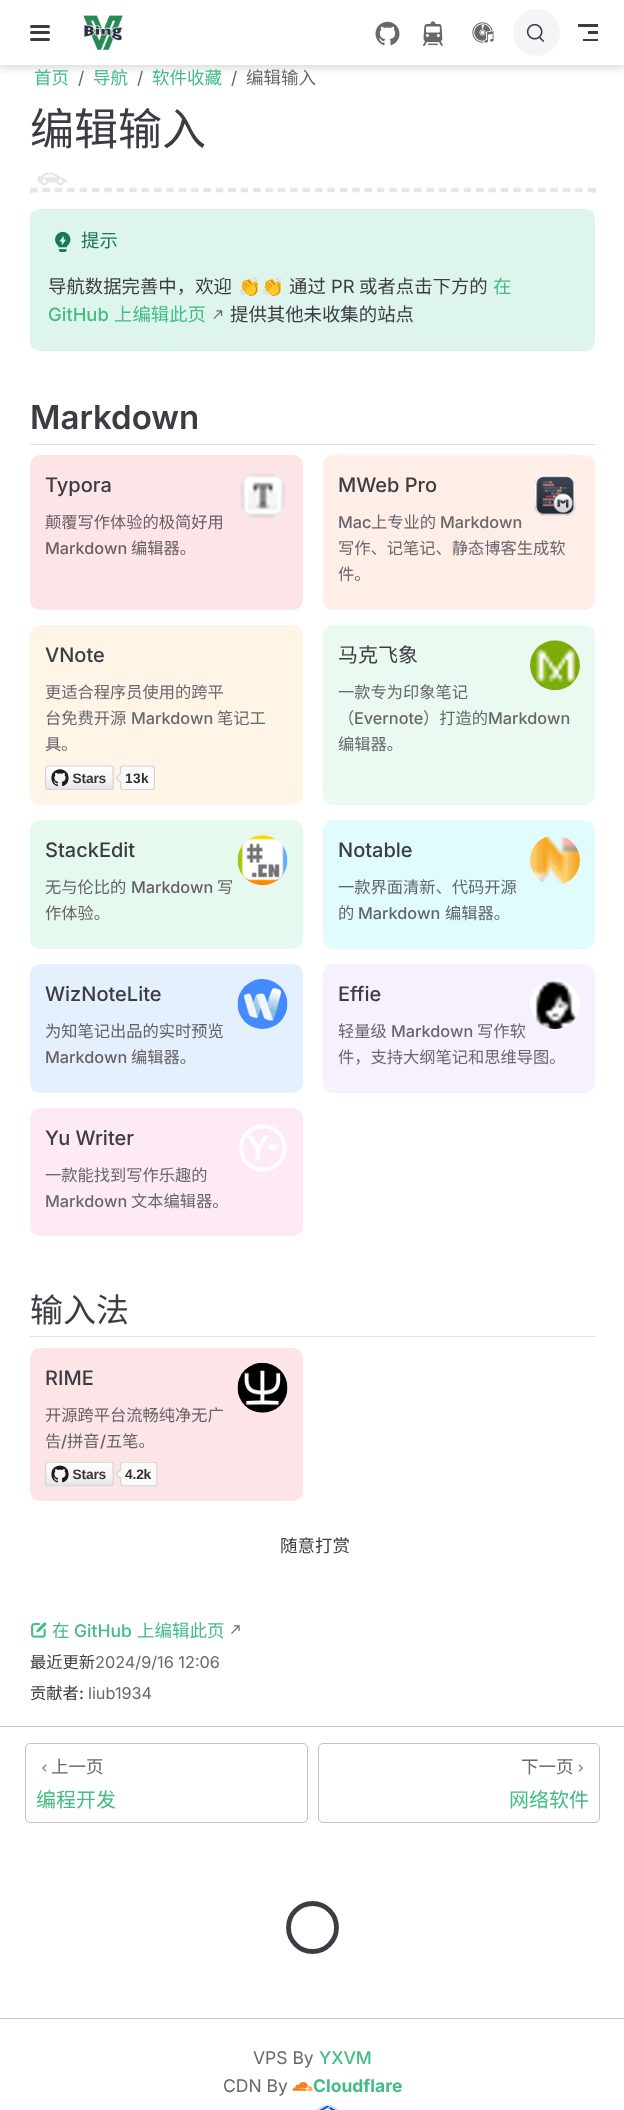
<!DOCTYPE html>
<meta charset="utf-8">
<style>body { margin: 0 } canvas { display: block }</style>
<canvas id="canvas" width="624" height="2110"></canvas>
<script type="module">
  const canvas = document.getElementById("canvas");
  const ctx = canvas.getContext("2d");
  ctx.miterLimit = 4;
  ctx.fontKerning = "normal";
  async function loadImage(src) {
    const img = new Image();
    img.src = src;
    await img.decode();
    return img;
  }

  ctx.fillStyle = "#ffffff";
  ctx.fillRect(0, 0, 624, 2110);
  ctx.save();
  ctx.beginPath();
  ctx.rect(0, 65, 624, 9);
  ctx.clip();
  ctx.fillStyle = "rgba(0, 0, 0, 0.15)";
  ctx.filter = "blur(5px)";
  ctx.beginPath();
  ctx.rect(0, 3, 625, 65);
  ctx.fill();
  ctx.filter = "none";
  ctx.restore();
  ctx.fillStyle = "#3c3c43";
  ctx.beginPath();
  ctx.roundRect(30, 25, 20, 3, 1.5);
  ctx.fill();
  ctx.beginPath();
  ctx.roundRect(30, 31, 20, 3, 1.5);
  ctx.fill();
  ctx.beginPath();
  ctx.roundRect(30, 38, 20, 3, 1.5);
  ctx.fill();
  ctx.drawImage(await loadImage("img1.png"), 83, 15, 40, 35);
  ctx.drawImage(await loadImage("img2.png"), 375, 21, 25, 25);
  ctx.drawImage(await loadImage("img3.png"), 423, 21, 20, 25);
  ctx.drawImage(await loadImage("img4.png"), 472, 22, 22, 21);
  ctx.fillStyle = "#f4f5f7";
  ctx.beginPath();
  ctx.arc(536.5, 32.5, 23.5, 0, Math.PI * 2);
  ctx.fill();
  ctx.drawImage(await loadImage("img5.png"), 526, 23, 18, 19);
  ctx.fillStyle = "#3c3c43";
  ctx.fillRect(578, 24, 20, 3);
  ctx.fillRect(588, 31, 10, 3);
  ctx.fillRect(583, 39, 15, 2);
  ctx.font = "17.5px Noto Sans CJK SC";
  ctx.fillStyle = "#43bc85";
  ctx.fillText("首页", 34, 84);
  ctx.font = "17.5px Inter";
  ctx.fillStyle = "#67676c";
  ctx.fillText("/", 78, 84);
  ctx.font = "17.5px Noto Sans CJK SC";
  ctx.fillStyle = "#43bc85";
  ctx.fillText("导航", 93, 84);
  ctx.font = "17.5px Inter";
  ctx.fillStyle = "#67676c";
  ctx.fillText("/", 137, 84);
  ctx.font = "17.5px Noto Sans CJK SC";
  ctx.fillStyle = "#43bc85";
  ctx.fillText("软件收藏", 152, 84);
  ctx.font = "17.5px Inter";
  ctx.fillStyle = "#67676c";
  ctx.fillText("/", 231, 84);
  ctx.font = "17.5px Noto Sans CJK SC";
  ctx.fillText("编辑输入", 246, 84);
  ctx.font = "44px Noto Sans CJK SC";
  ctx.fillStyle = "#3c3c43";
  ctx.fillText("编辑输入", 30, 145);
  ctx.drawImage(await loadImage("img6.png"), 37, 172, 30, 14);
  ctx.beginPath();
  ctx.moveTo(30, 189);
  ctx.lineTo(595, 189);
  ctx.strokeStyle = "#e6e6e6";
  ctx.lineWidth = 2.5;
  ctx.setLineDash([7.5, 4.89]);
  ctx.stroke();
  ctx.fillStyle = "#e6e6e6";
  ctx.fillRect(593, 188, 3, 5);
  ctx.beginPath();
  ctx.moveTo(30, 191);
  ctx.lineTo(595, 191);
  ctx.stroke();
  ctx.fillRect(30, 188, 3, 5);
  ctx.fillStyle = "#def5ee";
  ctx.beginPath();
  ctx.roundRect(30, 209, 565, 142, 9);
  ctx.fill();
  ctx.drawImage(await loadImage("img7.png"), 55, 231, 16, 21);
  ctx.font = "18.4px Noto Sans CJK SC";
  ctx.fillStyle = "#18794e";
  ctx.fillText("提示", 81, 247);
  ctx.fillStyle = "#3c3c43";
  ctx.fillText("导航数据完善中，欢迎", 48, 293);
  ctx.font = "18.4px Noto Color Emoji";
  ctx.fillText("👏👏", 238, 293);
  ctx.font = "18.4px Noto Sans CJK SC";
  ctx.fillStyle = "#43bc85";
  ctx.fillText("在", 493, 293);
  ctx.font = "500 18.4px Inter";
  ctx.fillText("GitHub", 48, 321);
  ctx.font = "18.4px Noto Sans CJK SC";
  ctx.fillText("上编辑此页", 114, 321);
  ctx.drawImage(await loadImage("img8.png"), 213, 310, 10, 9);
  ctx.fillStyle = "#3c3c43";
  ctx.fillText("通过", 289, 293);
  ctx.font = "18.4px Inter";
  ctx.fillText("PR", 331, 293);
  ctx.font = "18.4px Noto Sans CJK SC";
  ctx.fillText("或者点击下方的", 359, 293);
  ctx.fillText("提供其他未收集的站点", 230, 321);
  ctx.fillStyle = "#e2e2e3";
  ctx.fillRect(30, 444, 565, 1);
  ctx.font = "600 33px Inter";
  ctx.fillStyle = "#3c3c43";
  ctx.fillText("Markdown", 30, 429);
  ctx.fillStyle = "#fde5e7";
  ctx.beginPath();
  ctx.roundRect(30, 455, 273, 155, 10);
  ctx.fill();
  ctx.font = "500 20px Inter";
  ctx.fillStyle = "#3c3c43";
  ctx.fillText("Typora", 45, 492);
  ctx.drawImage(await loadImage("img9.png"), 240, 473, 46, 46);
  ctx.font = "16.25px Noto Sans CJK SC";
  ctx.fillStyle = "#666167";
  ctx.fillText("颠覆写作体验的极简好用", 45, 528);
  ctx.font = "500 16.25px Inter";
  ctx.fillText("Markdown", 45, 554);
  ctx.font = "16.25px Noto Sans CJK SC";
  ctx.fillText("编辑器。", 131, 554);
  ctx.fillStyle = "#ffeee8";
  ctx.beginPath();
  ctx.roundRect(323, 455, 272, 155, 10);
  ctx.fill();
  ctx.font = "500 20px Inter";
  ctx.fillStyle = "#3c3c43";
  ctx.fillText("MWeb Pro", 338, 492);
  ctx.drawImage(await loadImage("img10.png"), 534, 474, 42, 42);
  ctx.font = "500 16.25px Inter";
  ctx.fillStyle = "#67676c";
  ctx.fillText("Mac", 338, 528);
  ctx.font = "16.25px Noto Sans CJK SC";
  ctx.fillText("上专业的", 371, 528);
  ctx.font = "500 16.25px Inter";
  ctx.fillText("Markdown", 440, 528);
  ctx.font = "16.25px Noto Sans CJK SC";
  ctx.fillText("写作、记笔记、静态博客生成软", 338, 554);
  ctx.fillText("件。", 338, 580);
  ctx.fillStyle = "#fef5e7";
  ctx.beginPath();
  ctx.roundRect(30, 625, 273, 180, 10);
  ctx.fill();
  ctx.font = "500 20px Inter";
  ctx.fillStyle = "#3c3c43";
  ctx.fillText("VNote", 45, 662);
  ctx.font = "16.25px Noto Sans CJK SC";
  ctx.fillStyle = "#67676c";
  ctx.fillText("更适合程序员使用的跨平", 45, 698);
  ctx.fillText("台免费开源", 45, 724);
  ctx.font = "500 16.25px Inter";
  ctx.fillText("Markdown", 131, 724);
  ctx.font = "16.25px Noto Sans CJK SC";
  ctx.fillText("笔记工", 217, 724);
  ctx.fillText("具。", 45, 750);
  ctx.drawImage(await loadImage("img11.png"), 45, 765, 110, 25);
  ctx.fillStyle = "#eafaf1";
  ctx.beginPath();
  ctx.roundRect(323, 625, 272, 180, 10);
  ctx.fill();
  ctx.font = "20px Noto Sans CJK SC";
  ctx.fillStyle = "#3c3c43";
  ctx.fillText("马克飞象", 338, 662);
  ctx.drawImage(await loadImage("img12.png"), 530, 640, 50, 51);
  ctx.font = "16.25px Noto Sans CJK SC";
  ctx.fillStyle = "#67676c";
  ctx.fillText("一款专为印象笔记", 338, 698);
  ctx.fillText("（", 338, 724);
  ctx.font = "500 16.25px Inter";
  ctx.fillText("Evernote", 354, 724);
  ctx.font = "16.25px Noto Sans CJK SC";
  ctx.fillText("）打造的", 423, 724);
  ctx.font = "500 16.25px Inter";
  ctx.fillText("Markdown", 488, 724);
  ctx.font = "16.25px Noto Sans CJK SC";
  ctx.fillText("编辑器。", 338, 750);
  ctx.fillStyle = "#e6f9ee";
  ctx.beginPath();
  ctx.roundRect(30, 820, 273, 129, 10);
  ctx.fill();
  ctx.font = "500 20px Inter";
  ctx.fillStyle = "#3c3c43";
  ctx.fillText("StackEdit", 45, 857);
  ctx.drawImage(await loadImage("img13.png"), 237, 835, 51, 51);
  ctx.font = "16.25px Noto Sans CJK SC";
  ctx.fillStyle = "#666167";
  ctx.fillText("无与伦比的", 45, 893);
  ctx.font = "500 16.25px Inter";
  ctx.fillText("Markdown", 131, 893);
  ctx.font = "16.25px Noto Sans CJK SC";
  ctx.fillText("写", 217, 893);
  ctx.fillText("作体验。", 45, 919);
  ctx.fillStyle = "#e1fcfc";
  ctx.beginPath();
  ctx.roundRect(323, 820, 272, 129, 10);
  ctx.fill();
  ctx.font = "500 20px Inter";
  ctx.fillStyle = "#3c3c43";
  ctx.fillText("Notable", 338, 857);
  ctx.drawImage(await loadImage("img14.png"), 530, 836, 50, 49);
  ctx.font = "16.25px Noto Sans CJK SC";
  ctx.fillStyle = "#60666c";
  ctx.fillText("一款界面清新、代码开源", 338, 893);
  ctx.fillText("的", 338, 919);
  ctx.font = "500 16.25px Inter";
  ctx.fillText("Markdown", 358, 919);
  ctx.font = "16.25px Noto Sans CJK SC";
  ctx.fillText("编辑器。", 445, 919);
  ctx.fillStyle = "#e4f0fe";
  ctx.beginPath();
  ctx.roundRect(30, 964, 273, 129, 10);
  ctx.fill();
  ctx.font = "500 20px Inter";
  ctx.fillStyle = "#3c3c43";
  ctx.fillText("WizNoteLite", 45, 1001);
  ctx.drawImage(await loadImage("img15.png"), 237, 979, 51, 50);
  ctx.font = "16.25px Noto Sans CJK SC";
  ctx.fillStyle = "#666167";
  ctx.fillText("为知笔记出品的实时预览", 45, 1037);
  ctx.font = "500 16.25px Inter";
  ctx.fillText("Markdown", 45, 1063);
  ctx.font = "16.25px Noto Sans CJK SC";
  ctx.fillText("编辑器。", 131, 1063);
  ctx.fillStyle = "#f7f1fd";
  ctx.beginPath();
  ctx.roundRect(323, 964, 272, 129, 10);
  ctx.fill();
  ctx.font = "500 20px Inter";
  ctx.fillStyle = "#3c3c43";
  ctx.fillText("Effie", 338, 1001);
  ctx.drawImage(await loadImage("img16.png"), 530, 979, 50, 50);
  ctx.font = "16.25px Noto Sans CJK SC";
  ctx.fillStyle = "#67676c";
  ctx.fillText("轻量级", 338, 1037);
  ctx.font = "500 16.25px Inter";
  ctx.fillText("Markdown", 391, 1037);
  ctx.font = "16.25px Noto Sans CJK SC";
  ctx.fillText("写作软", 477, 1037);
  ctx.fillText("件，支持大纲笔记和思维导图。", 338, 1063);
  ctx.fillStyle = "#fdeaf5";
  ctx.beginPath();
  ctx.roundRect(30, 1108, 273, 128, 10);
  ctx.fill();
  ctx.font = "500 20px Inter";
  ctx.fillStyle = "#3c3c43";
  ctx.fillText("Yu Writer", 45, 1145);
  ctx.drawImage(await loadImage("img17.png"), 239, 1124, 48, 48);
  ctx.font = "16.25px Noto Sans CJK SC";
  ctx.fillStyle = "#67676c";
  ctx.fillText("一款能找到写作乐趣的", 45, 1181);
  ctx.font = "500 16.25px Inter";
  ctx.fillText("Markdown", 45, 1207);
  ctx.font = "16.25px Noto Sans CJK SC";
  ctx.fillText("文本编辑器。", 131, 1207);
  ctx.fillStyle = "#e2e2e3";
  ctx.fillRect(30, 1336, 565, 1);
  ctx.font = "33px Noto Sans CJK SC";
  ctx.fillStyle = "#3c3c43";
  ctx.fillText("输入法", 30, 1322);
  ctx.fillStyle = "#fde5e7";
  ctx.beginPath();
  ctx.roundRect(30, 1348, 273, 153, 10);
  ctx.fill();
  ctx.font = "500 20px Inter";
  ctx.fillStyle = "#3c3c43";
  ctx.fillText("RIME", 45, 1385);
  ctx.drawImage(await loadImage("img18.png"), 237, 1362, 51, 51);
  ctx.font = "16.25px Noto Sans CJK SC";
  ctx.fillStyle = "#666167";
  ctx.fillText("开源跨平台流畅纯净无广", 45, 1421);
  ctx.fillText("告", 45, 1447);
  ctx.font = "500 16.25px Inter";
  ctx.fillText("/", 61, 1447);
  ctx.font = "16.25px Noto Sans CJK SC";
  ctx.fillText("拼音", 67, 1447);
  ctx.font = "500 16.25px Inter";
  ctx.fillText("/", 100, 1447);
  ctx.font = "16.25px Noto Sans CJK SC";
  ctx.fillText("五笔。", 106, 1447);
  ctx.drawImage(await loadImage("img19.png"), 45, 1462, 113, 25);
  ctx.font = "17.5px Noto Sans CJK SC";
  ctx.fillStyle = "#3c3c43";
  ctx.fillText("随意打赏", 280, 1552);
  ctx.drawImage(await loadImage("img20.png"), 31, 1622, 16, 16);
  ctx.fillStyle = "#43bc85";
  ctx.fillText("在", 52, 1637);
  ctx.font = "500 17.5px Inter";
  ctx.fillText("GitHub", 74, 1637);
  ctx.font = "17.5px Noto Sans CJK SC";
  ctx.fillText("上编辑此页", 137, 1637);
  ctx.drawImage(await loadImage("img21.png"), 231, 1625, 9, 9);
  ctx.font = "16.25px Noto Sans CJK SC";
  ctx.fillStyle = "#3c3c43";
  ctx.fillText("最近更新", 30, 1668);
  ctx.font = "16.25px Inter";
  ctx.fillStyle = "#67676c";
  ctx.fillText("2024/9/16 12:06", 95, 1668);
  ctx.font = "16.25px Noto Sans CJK SC";
  ctx.fillStyle = "#3c3c43";
  ctx.fillText("贡献者", 30, 1699);
  ctx.font = "500 16.25px Inter";
  ctx.fillText(":", 79, 1699);
  ctx.font = "16.25px Inter";
  ctx.fillStyle = "#67676c";
  ctx.fillText("liub1934", 88, 1699);
  ctx.fillStyle = "#c2c2c4";
  ctx.fillRect(0, 1726, 624, 1);
  ctx.beginPath();
  ctx.roundRect(25.5, 1743.5, 282, 79, 4.5);
  ctx.strokeStyle = "#c2c2c4";
  ctx.lineWidth = 1;
  ctx.setLineDash([]);
  ctx.stroke();
  ctx.drawImage(await loadImage("img22.png"), 42, 1764, 5, 8);
  ctx.font = "17.5px Noto Sans CJK SC";
  ctx.fillStyle = "#67676c";
  ctx.fillText("上一页", 51, 1773);
  ctx.font = "20px Noto Sans CJK SC";
  ctx.fillStyle = "#43bc85";
  ctx.fillText("编程开发", 36, 1807);
  ctx.beginPath();
  ctx.roundRect(318.5, 1743.5, 281, 79, 4.5);
  ctx.stroke();
  ctx.font = "17.5px Noto Sans CJK SC";
  ctx.fillStyle = "#67676c";
  ctx.fillText("下一页", 521, 1773);
  ctx.drawImage(await loadImage("img23.png"), 578, 1764, 5, 8);
  ctx.font = "20px Noto Sans CJK SC";
  ctx.fillStyle = "#43bc85";
  ctx.fillText("网络软件", 509, 1807);
  ctx.beginPath();
  ctx.arc(312.5, 1927.5, 24, 0, Math.PI * 2);
  ctx.strokeStyle = "#3c3c43";
  ctx.lineWidth = 4.8;
  ctx.stroke();
  ctx.fillStyle = "#c2c2c4";
  ctx.fillRect(0, 2018, 624, 1);
  ctx.font = "17.5px Inter";
  ctx.fillStyle = "#67676c";
  ctx.fillText("VPS By", 253, 2064);
  ctx.font = "500 17.5px Inter";
  ctx.fillStyle = "#43bc85";
  ctx.fillText("YXVM", 319, 2064);
  ctx.font = "17.5px Inter";
  ctx.fillStyle = "#67676c";
  ctx.fillText("CDN By", 223, 2092);
  ctx.drawImage(await loadImage("img24.png"), 292, 2082, 21, 9);
  ctx.font = "bold 17.5px Inter";
  ctx.fillStyle = "#43bc85";
  ctx.fillText("Cloudflare", 313, 2092);
  ctx.drawImage(await loadImage("img25.png"), 317, 2105, 21, 5);
</script>
